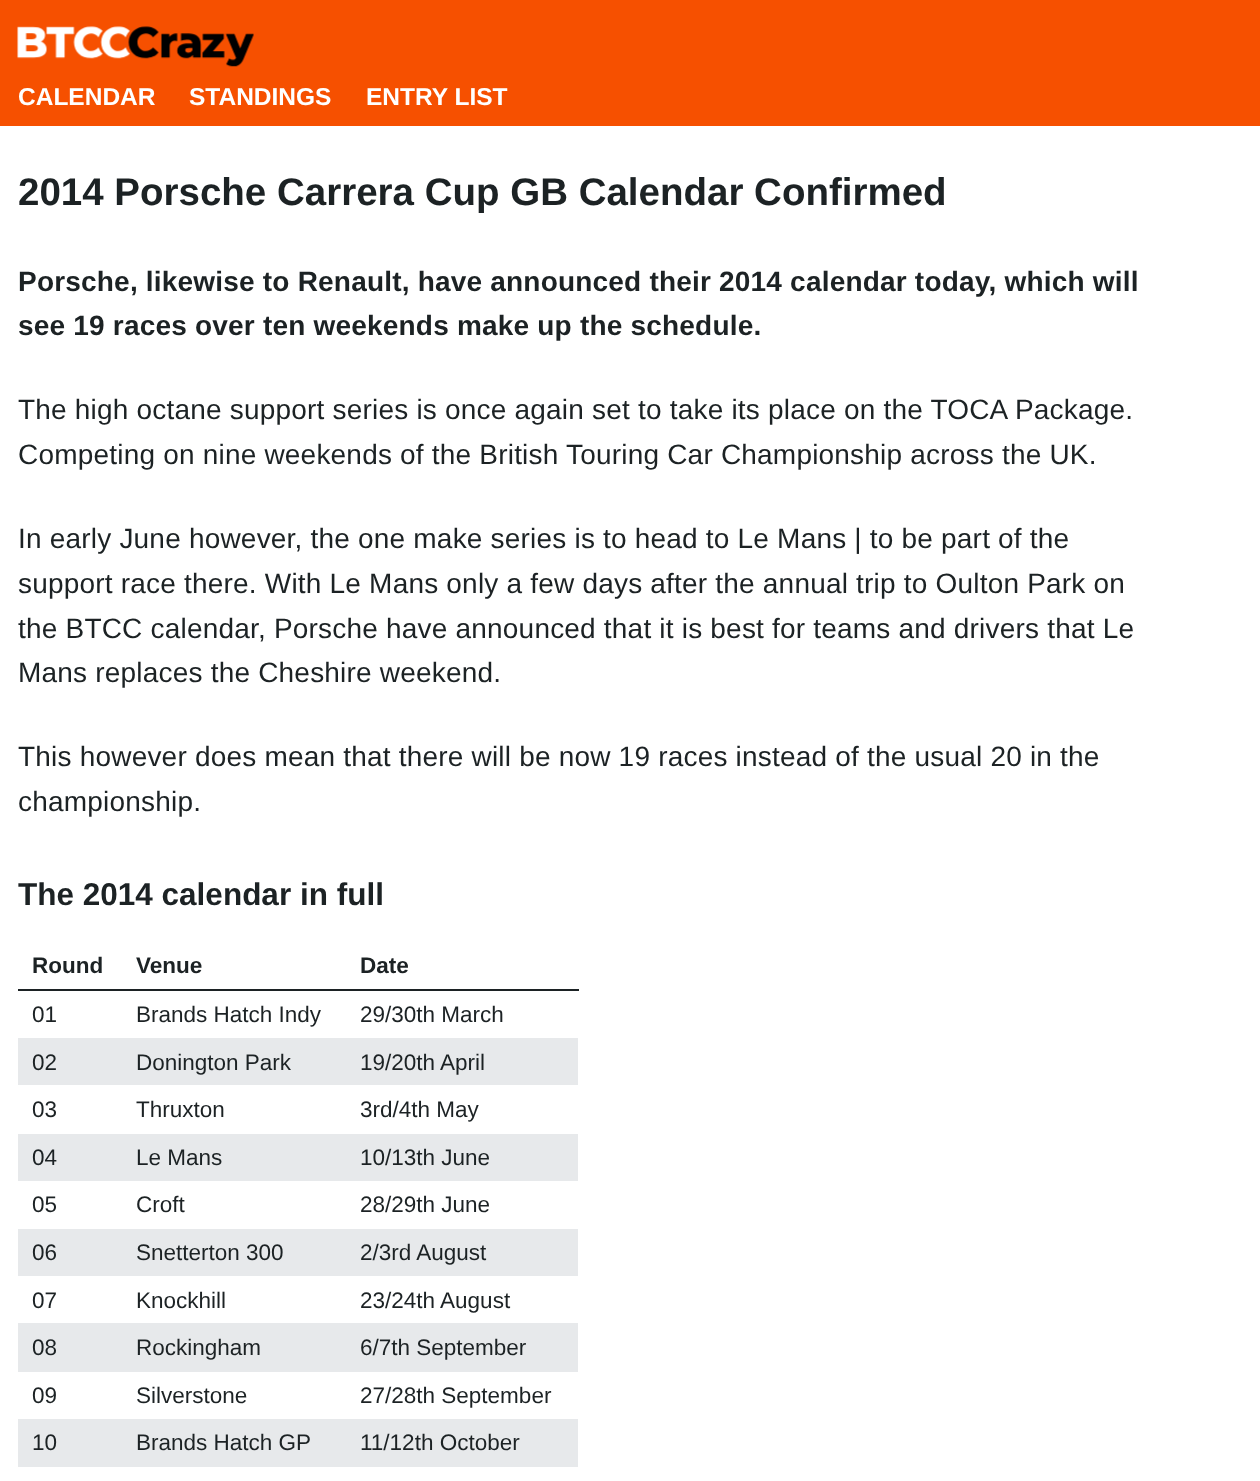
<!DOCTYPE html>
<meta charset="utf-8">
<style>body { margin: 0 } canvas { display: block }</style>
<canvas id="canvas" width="1260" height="1481"></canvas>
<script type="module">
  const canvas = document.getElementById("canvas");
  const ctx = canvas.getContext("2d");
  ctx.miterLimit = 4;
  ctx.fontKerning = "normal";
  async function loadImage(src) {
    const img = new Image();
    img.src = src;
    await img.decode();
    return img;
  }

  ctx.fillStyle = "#ffffff";
  ctx.fillRect(0, 0, 1260, 1481);
  ctx.fillStyle = "#f65000";
  ctx.fillRect(0, 0, 1260, 126);
  ctx.drawImage(await loadImage("img1.png"), 17, 26, 237, 41);
  ctx.font = "bold 24.5px Liberation Sans";
  ctx.fillStyle = "#ffffff";
  ctx.fillText("CALENDAR", 18, 105);
  ctx.fillText("STANDINGS", 189, 105);
  ctx.fillText("ENTRY LIST", 366, 105);
  ctx.font = "bold 38.5px Liberation Sans";
  ctx.fillStyle = "#1c2224";
  ctx.fillText("2014 Porsche Carrera Cup GB Calendar Confirmed", 18, 205);
  ctx.letterSpacing = "0.2px";
  ctx.font = "bold 28px Liberation Sans";
  ctx.fillText("Porsche, likewise to Renault, have announced their 2014 calendar today, which will", 18, 291);
  ctx.fillText("see 19 races over ten weekends make up the schedule.", 18, 335);
  ctx.font = "28px Liberation Sans";
  ctx.fillText("The high octane support series is once again set to take its place on the TOCA Package.", 18, 419);
  ctx.fillText("Competing on nine weekends of the British Touring Car Championship across the UK.", 18, 464);
  ctx.fillText("In early June however, the one make series is to head to Le Mans | to be part of the", 18, 548);
  ctx.fillText("support race there. With Le Mans only a few days after the annual trip to Oulton Park on", 18, 593);
  ctx.fillText("the BTCC calendar, Porsche have announced that it is best for teams and drivers that Le", 18, 638);
  ctx.fillText("Mans replaces the Cheshire weekend.", 18, 682);
  ctx.fillText("This however does mean that there will be now 19 races instead of the usual 20 in the", 18, 766);
  ctx.fillText("championship.", 18, 811);
  ctx.letterSpacing = "0px";
  ctx.font = "bold 31.5px Liberation Sans";
  ctx.fillText("The 2014 calendar in full", 18, 905);
  ctx.font = "bold 22.5px Liberation Sans";
  ctx.fillText("Round", 32, 973);
  ctx.fillText("Venue", 136, 973);
  ctx.fillRect(18, 989, 561, 2);
  ctx.fillText("Date", 360, 973);
  ctx.font = "22.5px Liberation Sans";
  ctx.fillText("01", 32, 1022);
  ctx.fillText("Brands Hatch Indy", 136, 1022);
  ctx.fillText("29/30th March", 360, 1022);
  ctx.fillStyle = "#e7e9eb";
  ctx.fillRect(18, 1038, 560, 47);
  ctx.fillStyle = "#1c2224";
  ctx.fillText("02", 32, 1070);
  ctx.fillText("Donington Park", 136, 1070);
  ctx.fillText("19/20th April", 360, 1070);
  ctx.fillText("03", 32, 1117);
  ctx.fillText("Thruxton", 136, 1117);
  ctx.fillText("3rd/4th May", 360, 1117);
  ctx.fillStyle = "#e7e9eb";
  ctx.fillRect(18, 1134, 560, 47);
  ctx.fillStyle = "#1c2224";
  ctx.fillText("04", 32, 1165);
  ctx.fillText("Le Mans", 136, 1165);
  ctx.fillText("10/13th June", 360, 1165);
  ctx.fillText("05", 32, 1212);
  ctx.fillText("Croft", 136, 1212);
  ctx.fillText("28/29th June", 360, 1212);
  ctx.fillStyle = "#e7e9eb";
  ctx.fillRect(18, 1229, 560, 47);
  ctx.fillStyle = "#1c2224";
  ctx.fillText("06", 32, 1260);
  ctx.fillText("Snetterton 300", 136, 1260);
  ctx.fillText("2/3rd August", 360, 1260);
  ctx.fillText("07", 32, 1308);
  ctx.fillText("Knockhill", 136, 1308);
  ctx.fillText("23/24th August", 360, 1308);
  ctx.fillStyle = "#e7e9eb";
  ctx.fillRect(18, 1323, 560, 49);
  ctx.fillStyle = "#1c2224";
  ctx.fillText("08", 32, 1355);
  ctx.fillText("Rockingham", 136, 1355);
  ctx.fillText("6/7th September", 360, 1355);
  ctx.fillText("09", 32, 1403);
  ctx.fillText("Silverstone", 136, 1403);
  ctx.fillText("27/28th September", 360, 1403);
  ctx.fillStyle = "#e7e9eb";
  ctx.fillRect(18, 1419, 560, 48);
  ctx.fillStyle = "#1c2224";
  ctx.fillText("10", 32, 1450);
  ctx.fillText("Brands Hatch GP", 136, 1450);
  ctx.fillText("11/12th October", 360, 1450);
</script>
